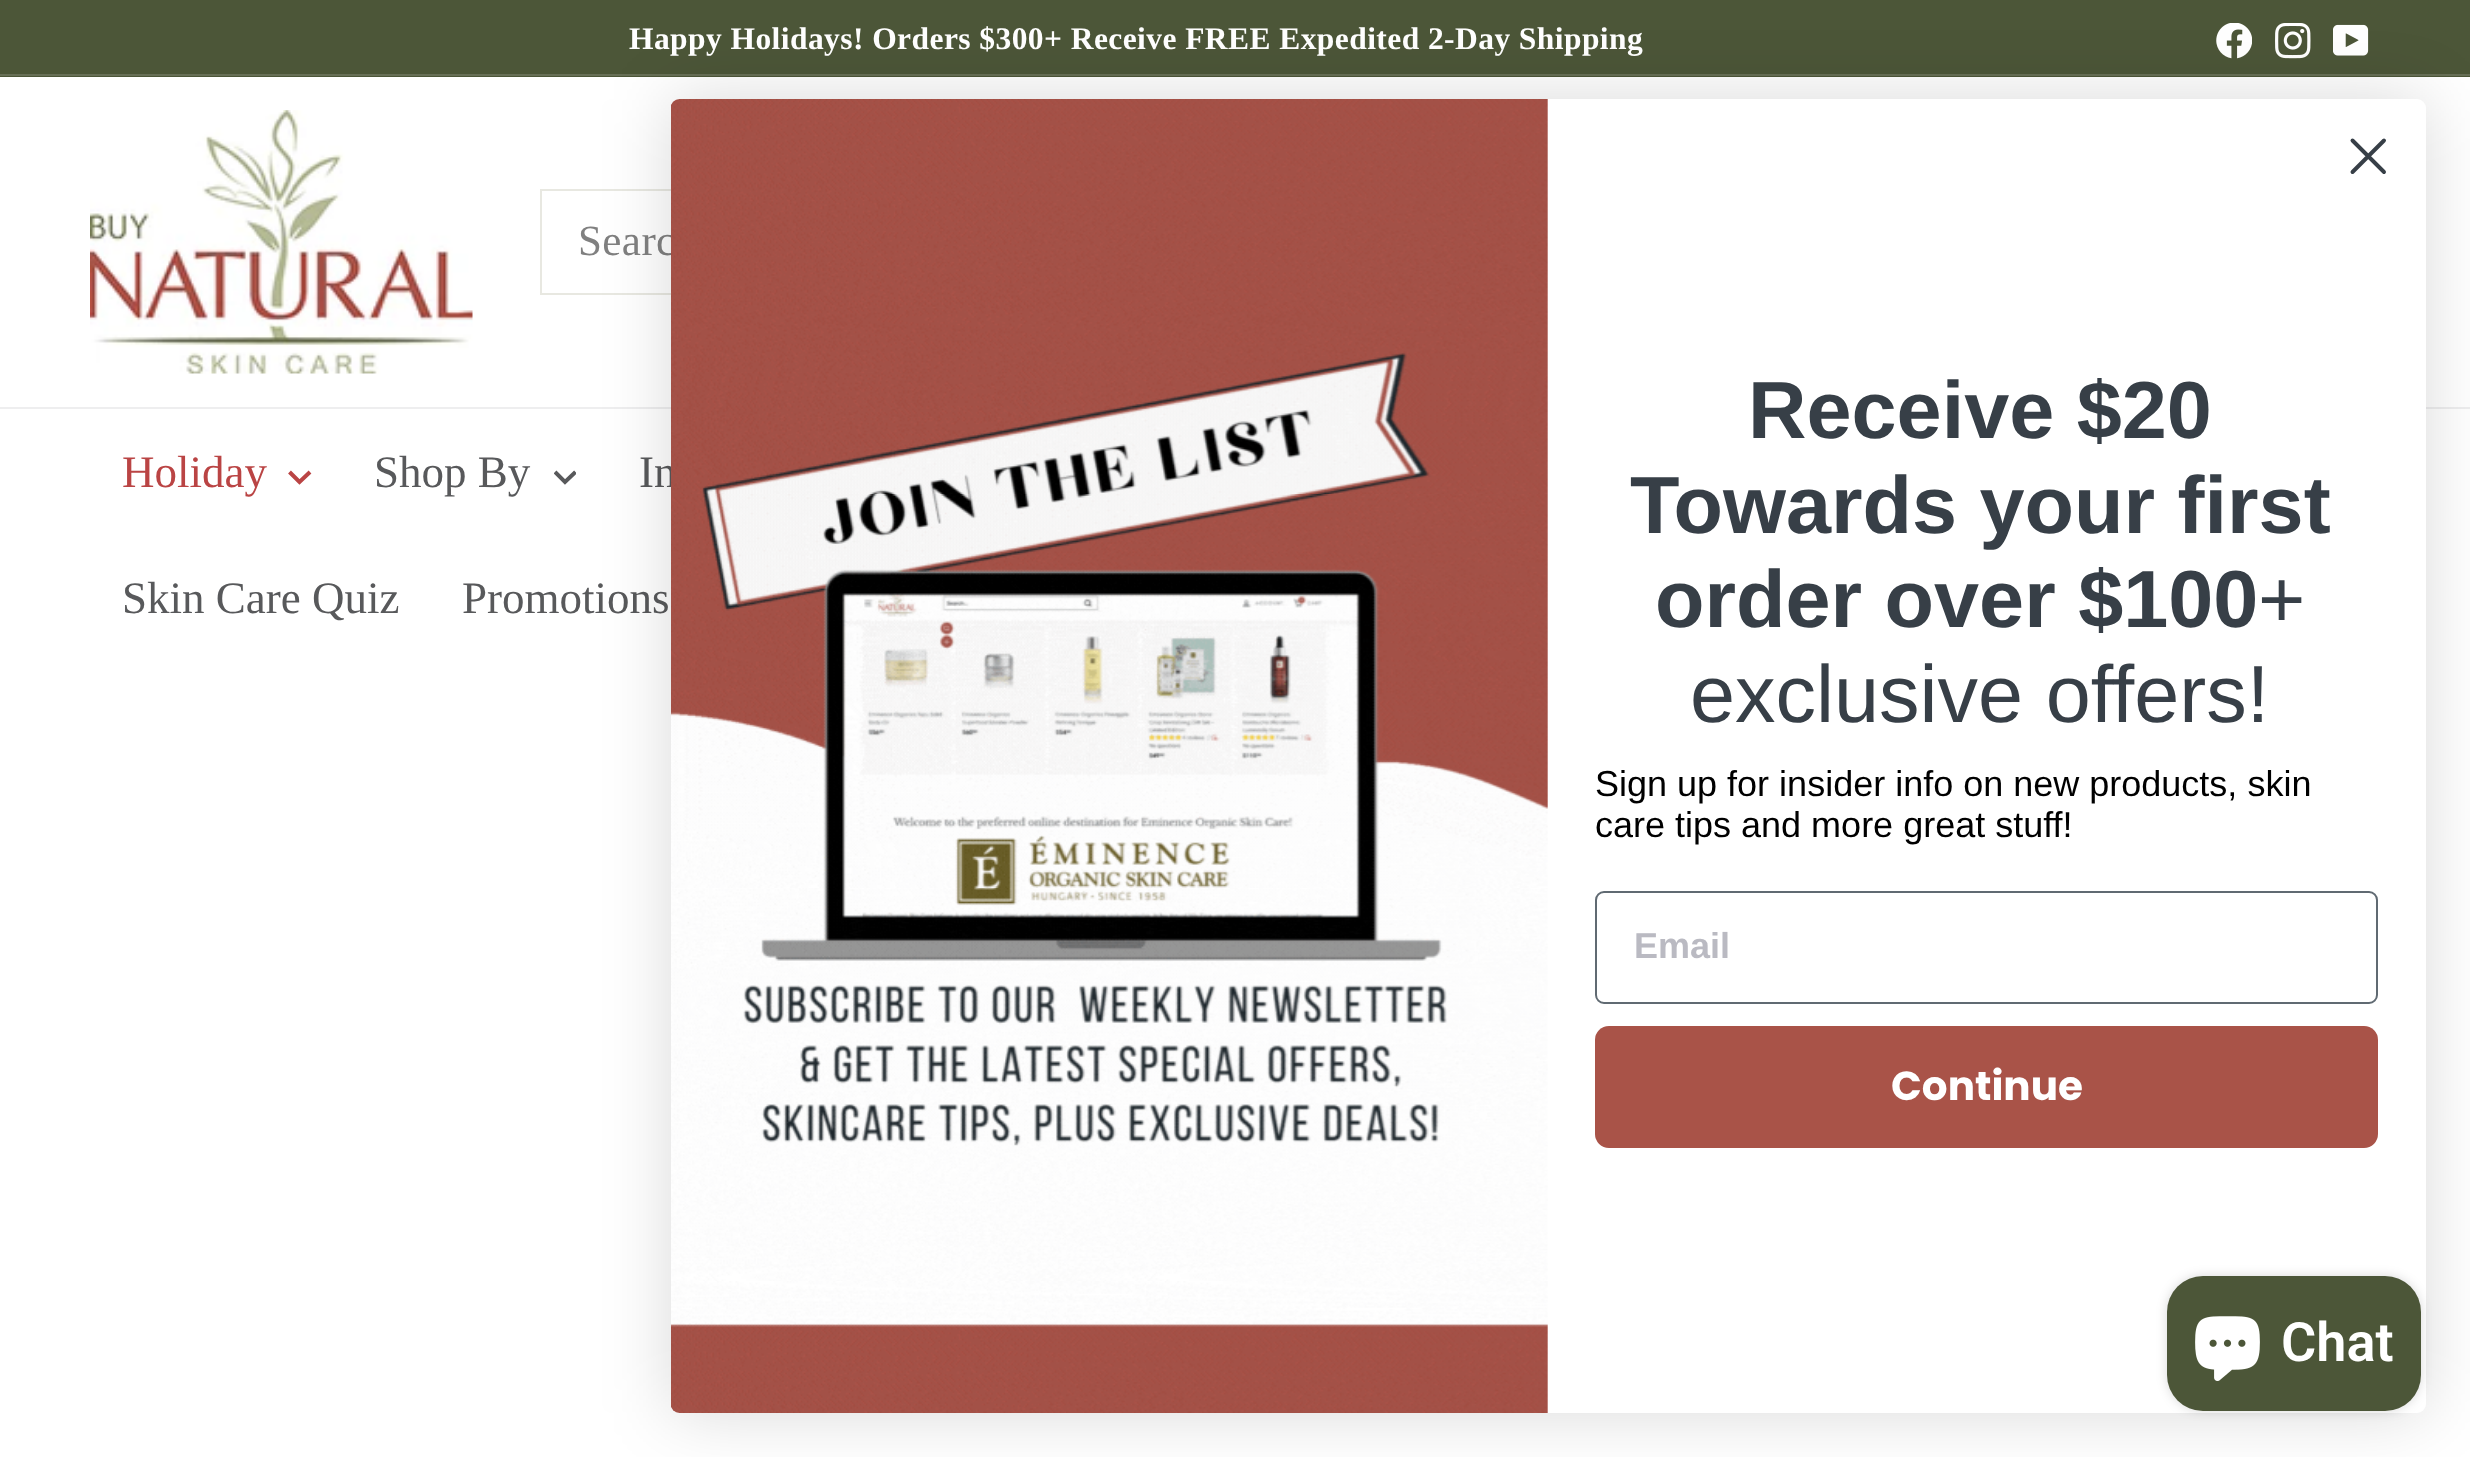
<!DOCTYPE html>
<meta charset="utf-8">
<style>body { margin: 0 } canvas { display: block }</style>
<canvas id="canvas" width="2470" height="1457"></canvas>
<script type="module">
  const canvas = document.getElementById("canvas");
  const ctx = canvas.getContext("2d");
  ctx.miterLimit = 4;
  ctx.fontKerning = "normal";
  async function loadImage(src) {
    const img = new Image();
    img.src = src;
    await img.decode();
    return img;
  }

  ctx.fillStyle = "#ffffff";
  ctx.fillRect(0, 0, 2470, 1457);
  ctx.fillStyle = "#4c5638";
  ctx.fillRect(0, 0, 2470, 77);
  ctx.letterSpacing = "0.43px";
  ctx.font = "bold 31.5px Liberation Serif";
  ctx.fillStyle = "#ffffff";
  ctx.fillText("Happy Holidays! Orders $300+ Receive FREE Expedited 2-Day Shipping", 629, 49);
  ctx.drawImage(await loadImage("img1.png"), 2216, 23, 36, 36);
  ctx.drawImage(await loadImage("img2.png"), 2275, 23, 36, 36);
  ctx.drawImage(await loadImage("img3.png"), 2333, 24, 36, 32);
  ctx.fillStyle = "#676f56";
  ctx.fillRect(0, 74, 2470, 2);
  ctx.drawImage(await loadImage("img4.png"), 90, 110, 383, 264);
  ctx.strokeStyle = "#e8e8e1";
  ctx.lineWidth = 2;
  ctx.strokeRect(541, 190, 1067, 104);
  ctx.font = "43px Liberation Serif";
  ctx.fillStyle = "#808080";
  ctx.fillText("Searc", 578, 255);
  ctx.fillStyle = "#eeeeef";
  ctx.fillRect(0, 407, 2470, 2);
  ctx.letterSpacing = "0px";
  ctx.font = "45px Liberation Serif";
  ctx.fillStyle = "#ba4444";
  ctx.fillText("Holiday", 122, 487);
  ctx.beginPath();
  ctx.moveTo(289.5, 472);
  ctx.lineTo(299.5, 482);
  ctx.lineTo(310, 472);
  ctx.strokeStyle = "#ba4444";
  ctx.lineWidth = 4;
  ctx.stroke();
  ctx.fillStyle = "#58595b";
  ctx.fillText("Shop By", 374, 487);
  ctx.save();
  ctx.beginPath();
  ctx.rect(554, 466, 22, 22);
  ctx.clip();
  ctx.beginPath();
  ctx.moveTo(555, 472);
  ctx.lineTo(565, 482);
  ctx.lineTo(575.5, 472);
  ctx.strokeStyle = "#58595b";
  ctx.stroke();
  ctx.restore();
  ctx.fillText("In", 639, 487);
  ctx.fillText("Skin Care Quiz", 122, 613);
  ctx.fillText("Promotions", 462, 613);
  ctx.fillStyle = "rgba(0, 0, 0, 0.15)";
  ctx.filter = "blur(34px)";
  ctx.beginPath();
  ctx.roundRect(671, 99, 1755, 1314, 9);
  ctx.fill();
  ctx.filter = "none";
  ctx.fillStyle = "#ffffff";
  ctx.beginPath();
  ctx.roundRect(671, 99, 1755, 1314, 9);
  ctx.fill();
  ctx.beginPath();
  ctx.moveTo(2352.5, 140.5);
  ctx.lineTo(2384, 172);
  ctx.moveTo(2352.5, 172);
  ctx.lineTo(2384, 140.5);
  ctx.closePath();
  ctx.strokeStyle = "#373f47";
  ctx.lineWidth = 3.9;
  ctx.lineCap = "round";
  ctx.lineJoin = "round";
  ctx.stroke();
  ctx.drawImage(await loadImage("img5.png"), 671, 99, 877, 1314);
  ctx.font = "bold 81px Liberation Sans";
  ctx.fillStyle = "#373f47";
  ctx.fillText("Receive $20", 1748, 438);
  ctx.fillText("Towards your first", 1630, 533);
  ctx.fillText("order over $100", 1655, 627);
  ctx.font = "81px Liberation Sans";
  ctx.fillText("+", 2258, 627);
  ctx.fillText("exclusive offers!", 1690, 722);
  ctx.font = "36px Liberation Sans";
  ctx.fillStyle = "#000000";
  ctx.fillText("Sign up for insider info on new products, skin", 1595, 796);
  ctx.fillText("care tips and more great stuff!", 1595, 837);
  ctx.beginPath();
  ctx.roundRect(1596, 892, 781, 111, 8);
  ctx.strokeStyle = "#606a72";
  ctx.lineWidth = 2;
  ctx.lineJoin = "miter";
  ctx.stroke();
  ctx.font = "bold 36px Liberation Sans";
  ctx.fillStyle = "#babac2";
  ctx.fillText("Email", 1634, 958);
  ctx.fillStyle = "#a95348";
  ctx.beginPath();
  ctx.roundRect(1595, 1026, 783, 122, 14);
  ctx.fill();
  ctx.font = "bold 40.5px Poppins";
  ctx.fillStyle = "#ffffff";
  ctx.fillText("Continue", 1891, 1100);
  ctx.fillStyle = "rgba(0, 0, 0, 0.15)";
  ctx.filter = "blur(5.5px)";
  ctx.beginPath();
  ctx.roundRect(2167, 1276, 254, 135, 36);
  ctx.fill();
  ctx.filter = "none";
  ctx.fillStyle = "#4c5638";
  ctx.beginPath();
  ctx.roundRect(2167, 1276, 254, 135, 36);
  ctx.fill();
  ctx.drawImage(await loadImage("img6.png"), 2195, 1316, 65, 65);
  ctx.font = "600 54px Roboto";
  ctx.fillStyle = "#ffffff";
  ctx.fillText("Chat", 2281, 1361);
</script>
